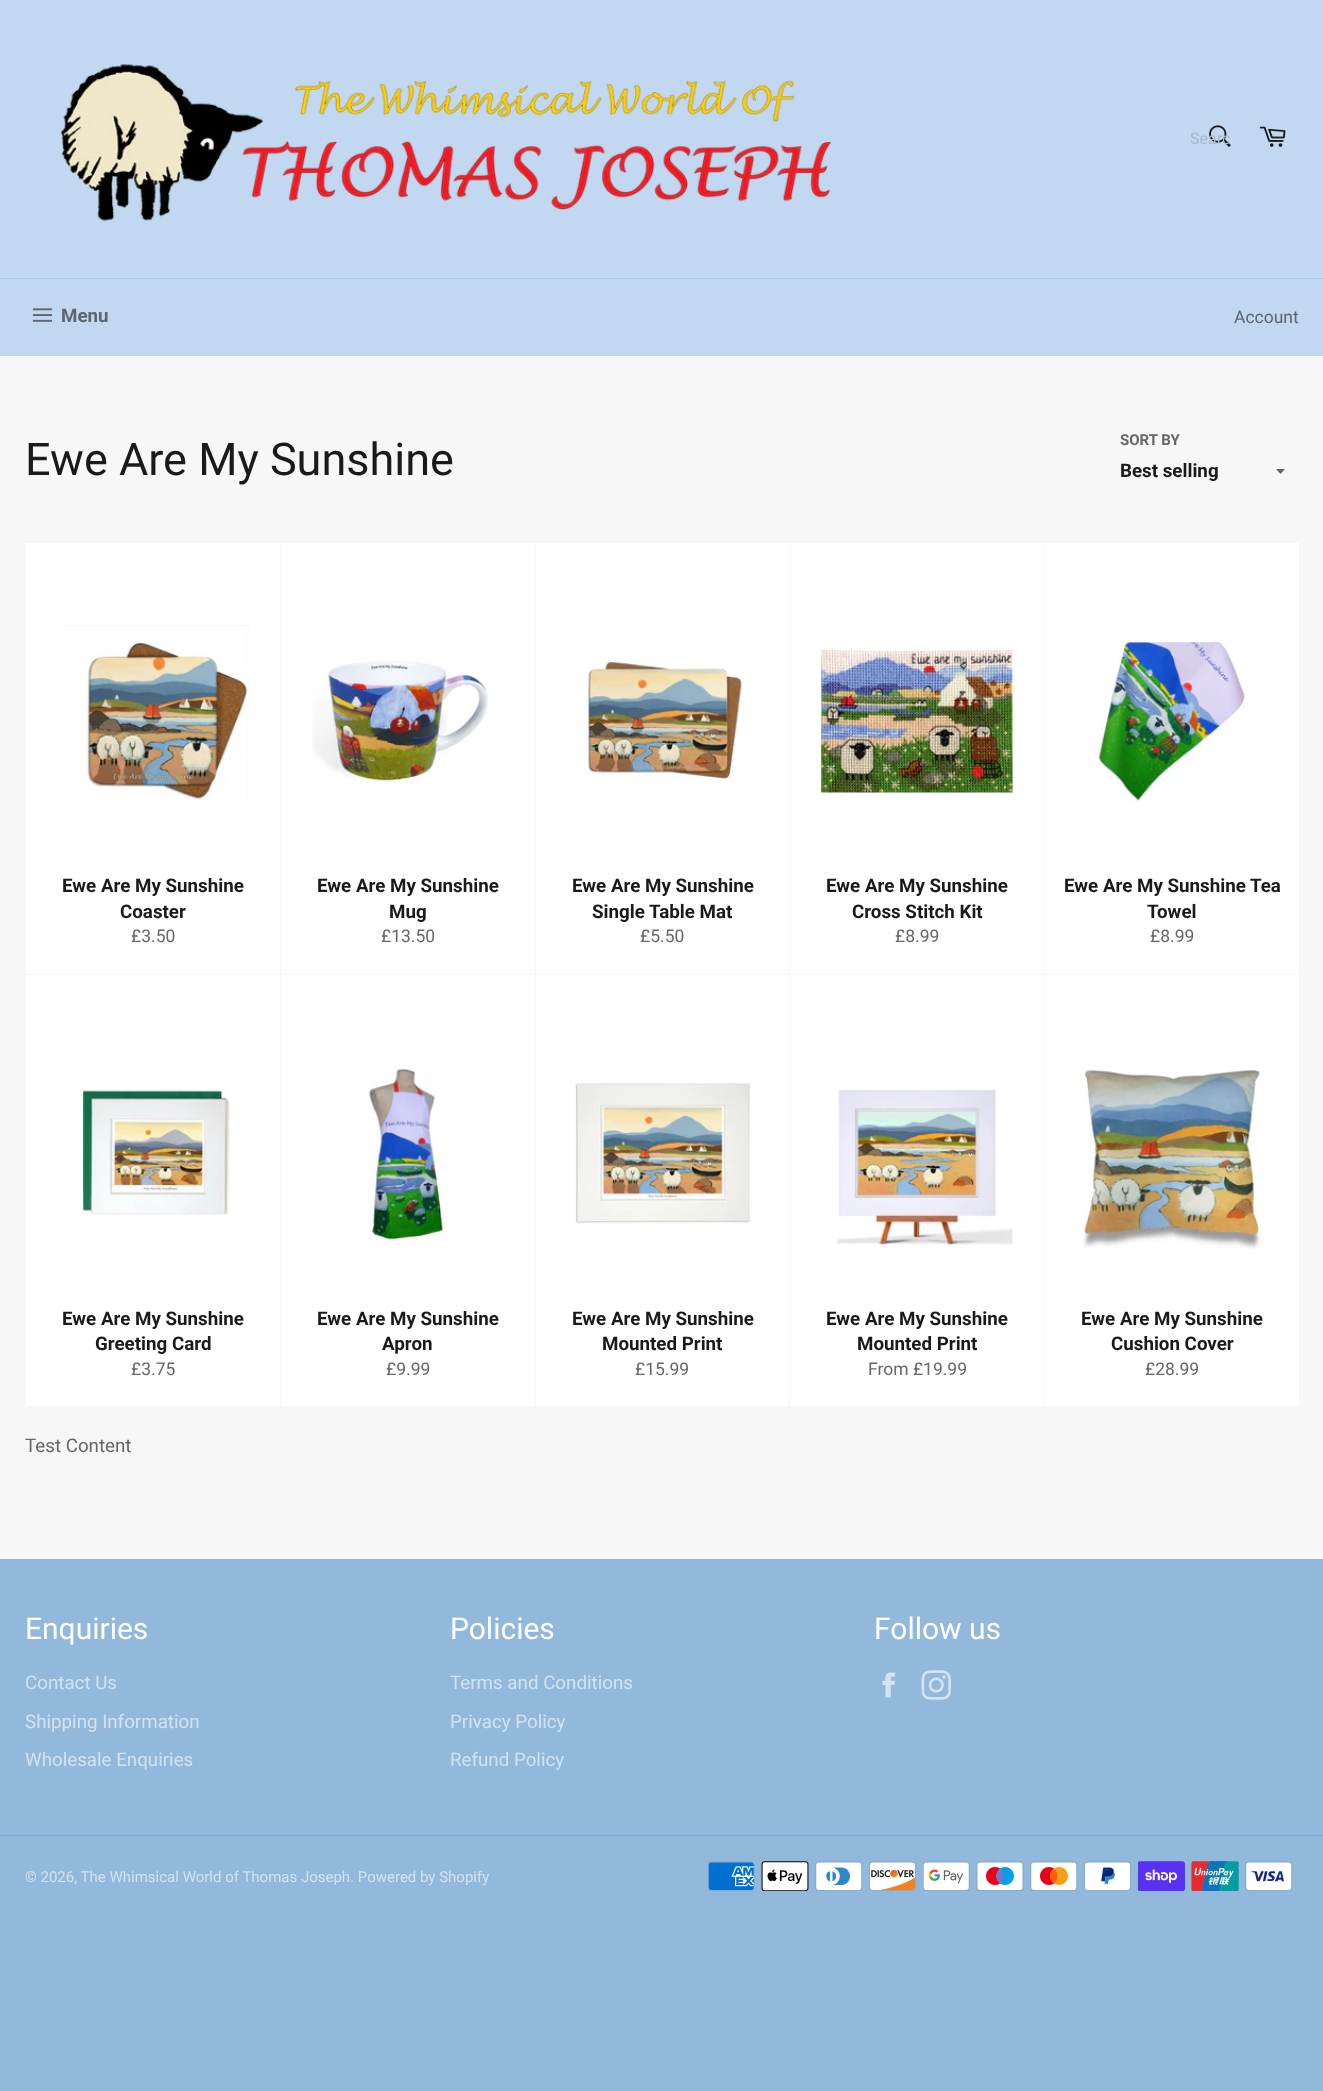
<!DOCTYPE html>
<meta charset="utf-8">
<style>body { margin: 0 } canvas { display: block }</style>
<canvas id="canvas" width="1323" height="2091"></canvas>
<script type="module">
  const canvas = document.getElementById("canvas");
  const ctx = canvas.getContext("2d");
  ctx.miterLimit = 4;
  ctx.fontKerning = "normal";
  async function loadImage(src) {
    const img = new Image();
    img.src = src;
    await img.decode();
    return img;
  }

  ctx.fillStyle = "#92b8dc";
  ctx.fillRect(0, 0, 1323, 2091);
  ctx.fillStyle = "#f7f7f7";
  ctx.fillRect(0, 356, 1323, 1203);
  ctx.fillStyle = "#c1d8f0";
  ctx.fillRect(0, 0, 1323, 278);
  ctx.drawImage(await loadImage("img1.png"), 61, 64, 771, 157);
  ctx.drawImage(await loadImage("img2.png"), 1209, 125, 22, 22);
  ctx.save();
  ctx.beginPath();
  ctx.rect(1190, 129, 40, 19);
  ctx.clip();
  ctx.font = "16px Roboto";
  ctx.fillStyle = "#a7bace";
  ctx.fillText("Searc", 1190, 144);
  ctx.restore();
  ctx.drawImage(await loadImage("img3.png"), 1259, 126, 27, 21);
  ctx.fillRect(0, 279, 1323, 77);
  ctx.fillStyle = "#accbeb";
  ctx.fillRect(0, 278, 1323, 1);
  ctx.drawImage(await loadImage("img4.png"), 32, 308, 21, 14);
  ctx.font = "bold 18.75px Roboto";
  ctx.fillStyle = "#5d6670";
  ctx.fillText("Menu", 61, 322);
  ctx.font = "17.5px Roboto";
  ctx.fillText("Account", 1234, 323);
  ctx.font = "45px Roboto";
  ctx.fillStyle = "#1a1a1a";
  ctx.fillText("Ewe Are My Sunshine", 25, 475);
  ctx.font = "bold 15px Roboto";
  ctx.fillStyle = "#666666";
  ctx.fillText("SORT BY", 1120, 445);
  ctx.beginPath();
  ctx.moveTo(1276, 469);
  ctx.lineTo(1280.5, 474);
  ctx.lineTo(1285, 469);
  ctx.closePath();
  ctx.fill();
  ctx.font = "bold 18.75px Roboto";
  ctx.fillStyle = "#1a1a1a";
  ctx.fillText("Best selling", 1120, 477);
  ctx.fillStyle = "#ffffff";
  ctx.fillRect(26, 543, 254, 431);
  ctx.drawImage(await loadImage("img5.png"), 58, 625, 191, 175);
  ctx.fillStyle = "#1a1a1a";
  ctx.fillText("Ewe Are My Sunshine", 62, 892);
  ctx.fillText("Coaster", 120, 918);
  ctx.font = "17.5px Roboto";
  ctx.fillStyle = "#666666";
  ctx.fillText("£3.50", 131, 942);
  ctx.fillStyle = "#ffffff";
  ctx.fillRect(281, 543, 254, 431);
  ctx.drawImage(await loadImage("img6.png"), 312, 661, 176, 124);
  ctx.font = "bold 18.75px Roboto";
  ctx.fillStyle = "#1a1a1a";
  ctx.fillText("Ewe Are My Sunshine", 317, 892);
  ctx.fillText("Mug", 389, 918);
  ctx.font = "17.5px Roboto";
  ctx.fillStyle = "#666666";
  ctx.fillText("£13.50", 381, 942);
  ctx.fillStyle = "#ffffff";
  ctx.fillRect(536, 543, 253, 431);
  ctx.drawImage(await loadImage("img7.png"), 585, 660, 160, 120);
  ctx.font = "bold 18.75px Roboto";
  ctx.fillStyle = "#1a1a1a";
  ctx.fillText("Ewe Are My Sunshine", 572, 892);
  ctx.fillText("Single Table Mat", 592, 918);
  ctx.font = "17.5px Roboto";
  ctx.fillStyle = "#666666";
  ctx.fillText("£5.50", 640, 942);
  ctx.fillStyle = "#ffffff";
  ctx.fillRect(790, 543, 254, 431);
  ctx.drawImage(await loadImage("img8.png"), 821, 650, 192, 143);
  ctx.font = "bold 18.75px Roboto";
  ctx.fillStyle = "#1a1a1a";
  ctx.fillText("Ewe Are My Sunshine", 826, 892);
  ctx.fillText("Cross Stitch Kit", 852, 918);
  ctx.font = "17.5px Roboto";
  ctx.fillStyle = "#666666";
  ctx.fillText("£8.99", 895, 942);
  ctx.fillStyle = "#ffffff";
  ctx.fillRect(1045, 543, 254, 431);
  ctx.drawImage(await loadImage("img9.png"), 1095, 641, 151, 162);
  ctx.font = "bold 18.75px Roboto";
  ctx.fillStyle = "#1a1a1a";
  ctx.fillText("Ewe Are My Sunshine Tea", 1064, 892);
  ctx.fillText("Towel", 1147, 918);
  ctx.font = "17.5px Roboto";
  ctx.fillStyle = "#666666";
  ctx.fillText("£8.99", 1150, 942);
  ctx.fillStyle = "#ffffff";
  ctx.fillRect(26, 975, 254, 431);
  ctx.drawImage(await loadImage("img10.png"), 82, 1090, 148, 125);
  ctx.font = "bold 18.75px Roboto";
  ctx.fillStyle = "#1a1a1a";
  ctx.fillText("Ewe Are My Sunshine", 62, 1325);
  ctx.fillText("Greeting Card", 95, 1350);
  ctx.font = "17.5px Roboto";
  ctx.fillStyle = "#666666";
  ctx.fillText("£3.75", 131, 1375);
  ctx.fillStyle = "#ffffff";
  ctx.fillRect(281, 975, 254, 431);
  ctx.drawImage(await loadImage("img11.png"), 368, 1066, 79, 175);
  ctx.font = "bold 18.75px Roboto";
  ctx.fillStyle = "#1a1a1a";
  ctx.fillText("Ewe Are My Sunshine", 317, 1325);
  ctx.fillText("Apron", 382, 1350);
  ctx.font = "17.5px Roboto";
  ctx.fillStyle = "#666666";
  ctx.fillText("£9.99", 386, 1375);
  ctx.fillStyle = "#ffffff";
  ctx.fillRect(536, 975, 253, 431);
  ctx.drawImage(await loadImage("img12.png"), 575, 1083, 176, 141);
  ctx.font = "bold 18.75px Roboto";
  ctx.fillStyle = "#1a1a1a";
  ctx.fillText("Ewe Are My Sunshine", 572, 1325);
  ctx.fillText("Mounted Print", 602, 1350);
  ctx.font = "17.5px Roboto";
  ctx.fillStyle = "#666666";
  ctx.fillText("£15.99", 635, 1375);
  ctx.fillStyle = "#ffffff";
  ctx.fillRect(790, 975, 254, 431);
  ctx.drawImage(await loadImage("img13.png"), 836, 1089, 177, 156);
  ctx.font = "bold 18.75px Roboto";
  ctx.fillStyle = "#1a1a1a";
  ctx.fillText("Ewe Are My Sunshine", 826, 1325);
  ctx.fillText("Mounted Print", 857, 1350);
  ctx.font = "17.5px Roboto";
  ctx.fillStyle = "#666666";
  ctx.fillText("From £19.99", 868, 1375);
  ctx.fillStyle = "#ffffff";
  ctx.fillRect(1045, 975, 254, 431);
  ctx.drawImage(await loadImage("img14.png"), 1083, 1070, 179, 179);
  ctx.font = "bold 18.75px Roboto";
  ctx.fillStyle = "#1a1a1a";
  ctx.fillText("Ewe Are My Sunshine", 1081, 1325);
  ctx.fillText("Cushion Cover", 1111, 1350);
  ctx.font = "17.5px Roboto";
  ctx.fillStyle = "#666666";
  ctx.fillText("£28.99", 1145, 1375);
  ctx.font = "18.75px Roboto";
  ctx.fillText("Test Content", 25, 1452);
  ctx.font = "30px Roboto";
  ctx.fillStyle = "#ffffff";
  ctx.fillText("Enquiries", 25, 1639);
  ctx.font = "18.75px Roboto";
  ctx.fillStyle = "#d3e3f1";
  ctx.fillText("Contact Us", 25, 1689);
  ctx.fillText("Shipping Information", 25, 1728);
  ctx.fillText("Wholesale Enquiries", 25, 1766);
  ctx.font = "30px Roboto";
  ctx.fillStyle = "#ffffff";
  ctx.fillText("Policies", 450, 1639);
  ctx.font = "18.75px Roboto";
  ctx.fillStyle = "#d3e3f1";
  ctx.fillText("Terms and Conditions", 450, 1689);
  ctx.fillText("Privacy Policy", 450, 1728);
  ctx.fillText("Refund Policy", 450, 1766);
  ctx.font = "30px Roboto";
  ctx.fillStyle = "#ffffff";
  ctx.fillText("Follow us", 874, 1639);
  ctx.drawImage(await loadImage("img15.png"), 882, 1672, 13, 26);
  ctx.drawImage(await loadImage("img16.png"), 921, 1670, 30, 30);
  ctx.fillStyle = "#7fabd6";
  ctx.fillRect(0, 1835, 1323, 1);
  ctx.font = "15px Roboto";
  ctx.fillStyle = "#d3e3f1";
  ctx.fillText("© 2026, The Whimsical World of Thomas Joseph. Powered by Shopify", 25, 1882);
  ctx.drawImage(await loadImage("img17.png"), 708, 1861, 47, 30);
  ctx.drawImage(await loadImage("img18.png"), 761, 1861, 48, 30);
  ctx.drawImage(await loadImage("img19.png"), 815, 1861, 48, 30);
  ctx.drawImage(await loadImage("img20.png"), 869, 1861, 47, 30);
  ctx.drawImage(await loadImage("img21.png"), 923, 1861, 47, 30);
  ctx.drawImage(await loadImage("img22.png"), 976, 1861, 48, 30);
  ctx.drawImage(await loadImage("img23.png"), 1030, 1861, 48, 30);
  ctx.drawImage(await loadImage("img24.png"), 1084, 1861, 47, 30);
  ctx.drawImage(await loadImage("img25.png"), 1138, 1861, 47, 30);
  ctx.drawImage(await loadImage("img26.png"), 1191, 1861, 48, 30);
  ctx.drawImage(await loadImage("img27.png"), 1245, 1861, 48, 30);
</script>
